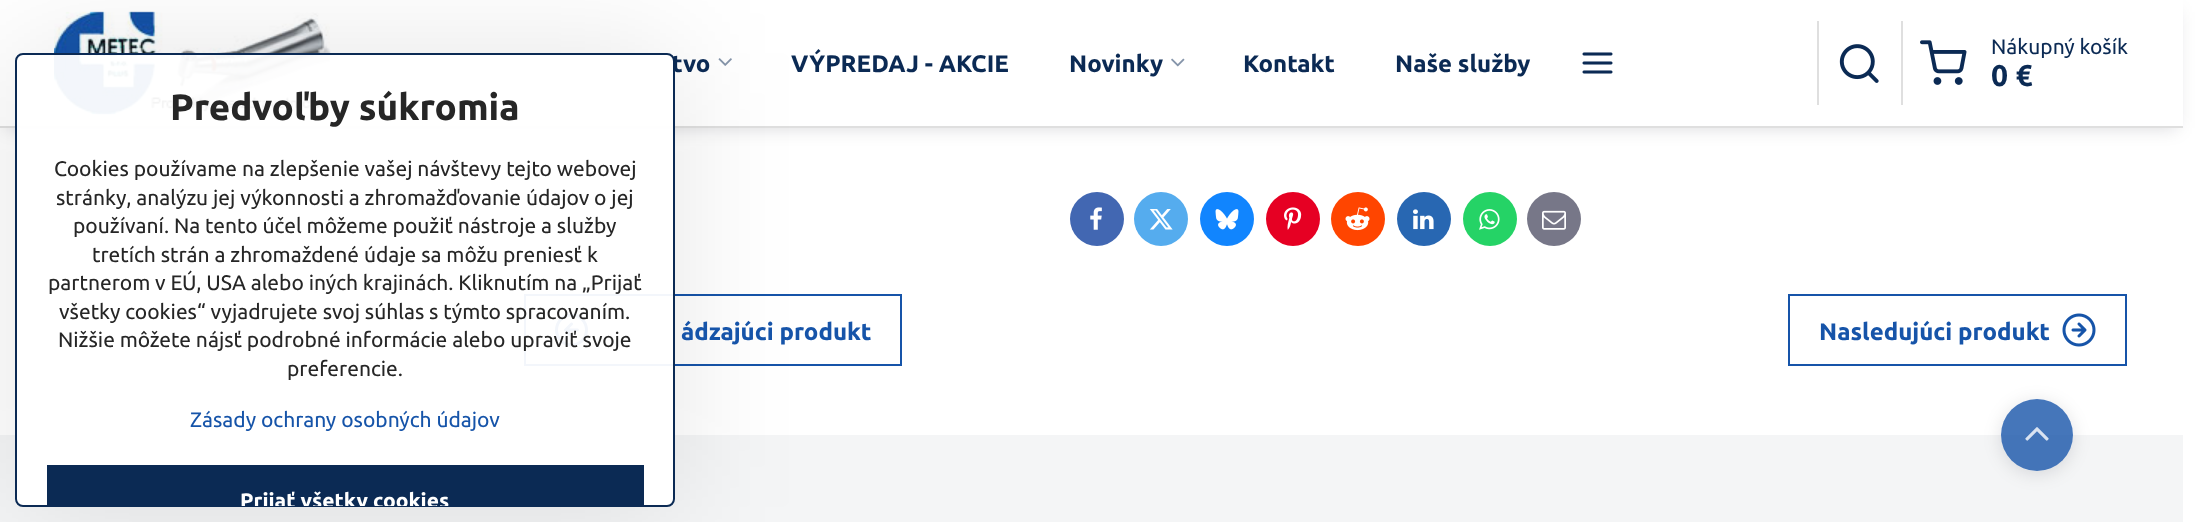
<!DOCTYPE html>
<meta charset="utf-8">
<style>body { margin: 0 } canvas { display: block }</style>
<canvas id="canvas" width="2204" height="522"></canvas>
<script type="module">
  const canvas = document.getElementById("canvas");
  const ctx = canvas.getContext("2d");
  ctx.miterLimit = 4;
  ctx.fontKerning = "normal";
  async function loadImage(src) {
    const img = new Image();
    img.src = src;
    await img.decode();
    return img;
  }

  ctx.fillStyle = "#ffffff";
  ctx.fillRect(0, 0, 2204, 522);
  ctx.fillStyle = "rgba(0, 0, 20, 0.15)";
  ctx.filter = "blur(9px)";
  ctx.beginPath();
  ctx.rect(6, 12, 2171, 116);
  ctx.fill();
  ctx.filter = "none";
  ctx.fillStyle = "#ffffff";
  ctx.fillRect(0, 0, 2183, 126);
  ctx.fillStyle = "#dfdfdf";
  ctx.fillRect(0, 126, 2183, 2);
  ctx.drawImage(await loadImage("img1.png"), 718, 58, 14, 8);
  ctx.drawImage(await loadImage("img4.png"), 54, 11, 277, 104);
  ctx.strokeStyle = "#1654a9";
  ctx.lineWidth = 2;
  ctx.strokeRect(525, 295, 376, 70);
  ctx.drawImage(await loadImage("img15.png"), 555, 313, 33, 34);
  ctx.fillStyle = "#f4f5f6";
  ctx.fillRect(0, 435, 2183, 87);
  ctx.save();
  ctx.beginPath();
  ctx.moveTo(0, 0);
  ctx.lineTo(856, 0);
  ctx.lineTo(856, 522);
  ctx.lineTo(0, 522);
  ctx.closePath();
  ctx.moveTo(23, 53);
  ctx.lineTo(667, 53);
  ctx.bezierCurveTo(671.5, 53, 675, 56.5, 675, 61);
  ctx.lineTo(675, 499);
  ctx.bezierCurveTo(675, 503.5, 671.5, 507, 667, 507);
  ctx.lineTo(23, 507);
  ctx.bezierCurveTo(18.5, 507, 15, 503.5, 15, 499);
  ctx.lineTo(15, 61);
  ctx.bezierCurveTo(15, 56.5, 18.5, 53, 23, 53);
  ctx.closePath();
  ctx.clip("evenodd");
  ctx.fillStyle = "rgba(0, 0, 0, 0.1)";
  ctx.filter = "blur(60px)";
  ctx.beginPath();
  ctx.roundRect(15, 53, 660, 454, 8);
  ctx.fill();
  ctx.filter = "none";
  ctx.restore();
  ctx.font = "bold 24px Ubuntu";
  ctx.fillStyle = "#0b2a54";
  ctx.fillText("tvo", 672, 72);
  ctx.fillStyle = "rgba(255, 255, 255, 0.95)";
  ctx.beginPath();
  ctx.roundRect(16, 54, 658, 452, 7);
  ctx.fill();
  ctx.strokeStyle = "#0b2a54";
  ctx.stroke();
  ctx.font = "bold 36.75px Ubuntu";
  ctx.fillStyle = "#262626";
  ctx.fillText("Predvoľby súkromia", 170, 120);
  ctx.font = "21px Ubuntu";
  ctx.fillText("Cookies používame na zlepšenie vašej návštevy tejto webovej", 54, 176);
  ctx.fillText("stránky, analýzu jej výkonnosti a zhromažďovanie údajov o jej", 56, 205);
  ctx.fillText("používaní. Na tento účel môžeme použiť nástroje a služby", 73, 233);
  ctx.fillText("tretích strán a zhromaždené údaje sa môžu preniesť k", 92, 262);
  ctx.fillText("partnerom v EÚ, USA alebo iných krajinách. Kliknutím na „Prijať", 48, 290);
  ctx.fillText("všetky cookies“ vyjadrujete svoj súhlas s týmto spracovaním.", 59, 319);
  ctx.fillText("Nižšie môžete nájsť podrobné informácie alebo upraviť svoje", 58, 347);
  ctx.fillText("preferencie.", 287, 376);
  ctx.fillStyle = "#1654a9";
  ctx.fillText("Zásady ochrany osobných údajov", 190, 427);
  ctx.fillStyle = "#0b2a54";
  ctx.fillRect(47, 465, 597, 40);
  ctx.save();
  ctx.beginPath();
  ctx.roundRect(17, 54, 657, 452, 6);
  ctx.clip();
  ctx.font = "bold 21px Ubuntu";
  ctx.fillStyle = "#ffffff";
  ctx.fillText("Prijať všetky cookies", 240, 508);
  ctx.restore();
  ctx.font = "bold 24px Ubuntu";
  ctx.fillText("VÝPREDAJ - AKCIE", 791, 72);
  ctx.fillText("Novinky", 1069, 72);
  ctx.drawImage(await loadImage("img2.png"), 1171, 58, 14, 9);
  ctx.fillText("Kontakt", 1243, 72);
  ctx.fillText("Naše služby", 1395, 72);
  ctx.drawImage(await loadImage("img3.png"), 1582, 52, 31, 22);
  ctx.fillStyle = "#dfdfdf";
  ctx.fillRect(1817, 21, 2, 84);
  ctx.drawImage(await loadImage("img5.png"), 1839, 44, 40, 39);
  ctx.fillRect(1901, 21, 2, 84);
  ctx.drawImage(await loadImage("img6.png"), 1920, 40, 47, 45);
  ctx.font = "21px Ubuntu";
  ctx.fillStyle = "#0b2a54";
  ctx.fillText("Nákupný košík", 1991, 54);
  ctx.font = "bold 30px Ubuntu";
  ctx.fillText("0 €", 1991, 86);
  ctx.fillStyle = "#4267b2";
  ctx.beginPath();
  ctx.arc(1097, 219, 27, 0, Math.PI * 2);
  ctx.fill();
  ctx.drawImage(await loadImage("img7.png"), 1090, 207, 12, 23);
  ctx.fillStyle = "#55acee";
  ctx.beginPath();
  ctx.arc(1161, 219, 27, 0, Math.PI * 2);
  ctx.fill();
  ctx.drawImage(await loadImage("img8.png"), 1149, 209, 24, 21);
  ctx.fillStyle = "#1185fe";
  ctx.beginPath();
  ctx.arc(1227, 219, 27, 0, Math.PI * 2);
  ctx.fill();
  ctx.drawImage(await loadImage("img9.png"), 1215, 209, 24, 21);
  ctx.fillStyle = "#e60023";
  ctx.beginPath();
  ctx.arc(1293, 219, 27, 0, Math.PI * 2);
  ctx.fill();
  ctx.drawImage(await loadImage("img10.png"), 1284, 207, 18, 23);
  ctx.fillStyle = "#ff4500";
  ctx.beginPath();
  ctx.arc(1358, 219, 27, 0, Math.PI * 2);
  ctx.fill();
  ctx.drawImage(await loadImage("img11.png"), 1345, 207, 25, 24);
  ctx.fillStyle = "#2867b2";
  ctx.beginPath();
  ctx.arc(1424, 219, 27, 0, Math.PI * 2);
  ctx.fill();
  ctx.drawImage(await loadImage("img12.png"), 1413, 209, 21, 21);
  ctx.fillStyle = "#25d366";
  ctx.beginPath();
  ctx.arc(1490, 219, 27, 0, Math.PI * 2);
  ctx.fill();
  ctx.drawImage(await loadImage("img13.png"), 1479, 209, 21, 21);
  ctx.fillStyle = "#777788";
  ctx.beginPath();
  ctx.arc(1554, 219, 27, 0, Math.PI * 2);
  ctx.fill();
  ctx.drawImage(await loadImage("img14.png"), 1542, 210, 24, 20);
  ctx.font = "bold 24px Ubuntu";
  ctx.fillStyle = "#1654a9";
  ctx.fillText("ádzajúci produkt", 681, 340);
  ctx.strokeStyle = "#1654a9";
  ctx.strokeRect(1789, 295, 337, 70);
  ctx.fillText("Nasledujúci produkt", 1819, 340);
  ctx.drawImage(await loadImage("img16.png"), 2062, 313, 34, 34);
  ctx.save();
  ctx.beginPath();
  ctx.moveTo(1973, 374);
  ctx.lineTo(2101, 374);
  ctx.lineTo(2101, 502);
  ctx.lineTo(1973, 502);
  ctx.closePath();
  ctx.moveTo(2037, 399);
  ctx.bezierCurveTo(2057, 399, 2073, 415, 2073, 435);
  ctx.bezierCurveTo(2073, 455, 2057, 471, 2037, 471);
  ctx.bezierCurveTo(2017, 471, 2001, 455, 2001, 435);
  ctx.bezierCurveTo(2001, 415, 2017, 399, 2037, 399);
  ctx.closePath();
  ctx.clip("evenodd");
  ctx.fillStyle = "rgba(0, 0, 20, 0.12)";
  ctx.filter = "blur(9px)";
  ctx.beginPath();
  ctx.roundRect(2001, 402, 72, 72, 36);
  ctx.fill();
  ctx.filter = "none";
  ctx.restore();
  ctx.fillStyle = "rgba(22, 84, 169, 0.8)";
  ctx.beginPath();
  ctx.arc(2037, 435, 36, 0, Math.PI * 2);
  ctx.fill();
  ctx.drawImage(await loadImage("img17.png"), 2025, 427, 24, 14);
</script>
